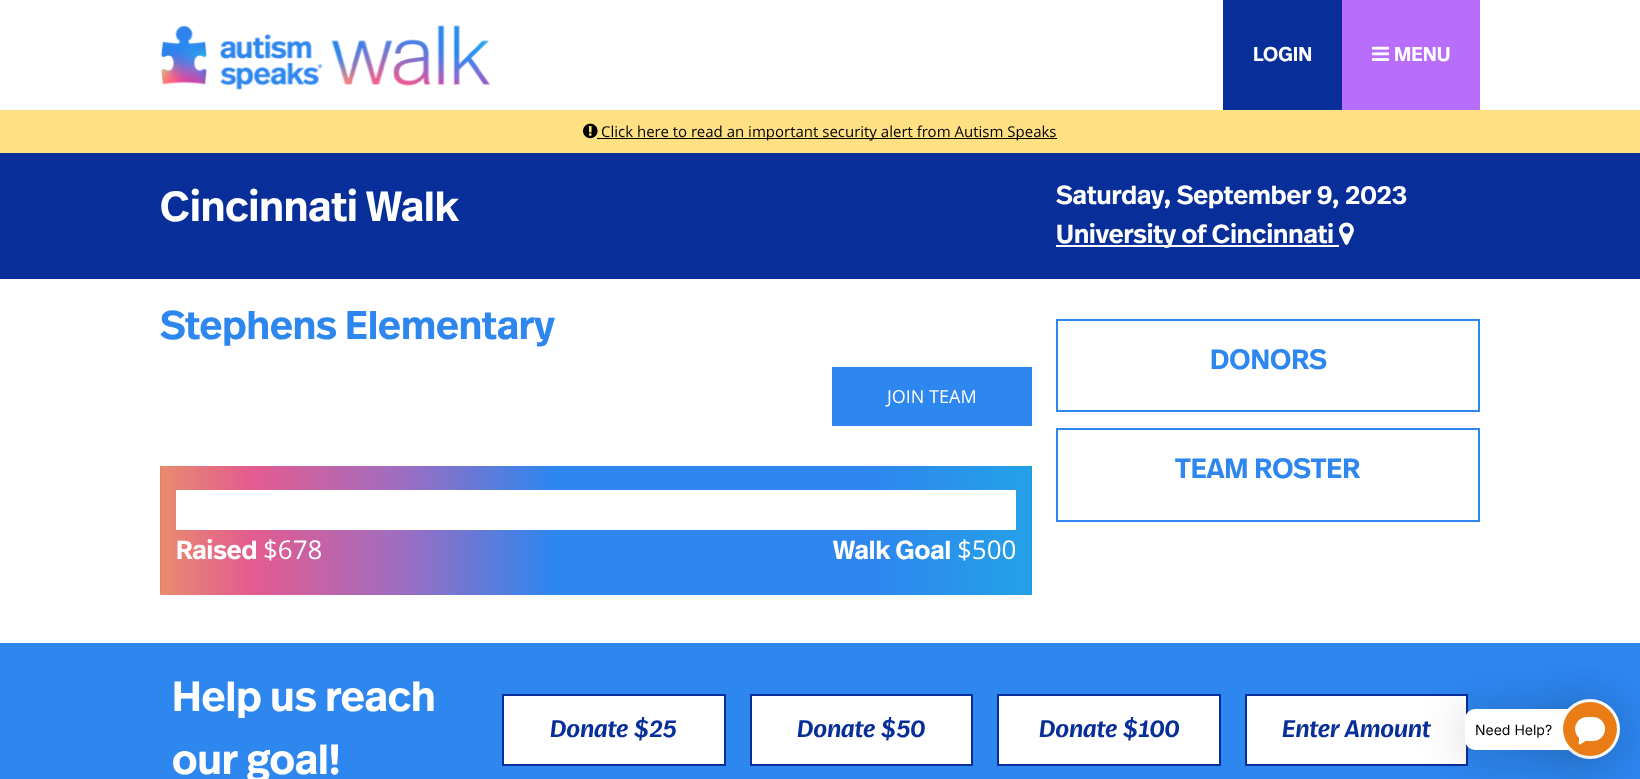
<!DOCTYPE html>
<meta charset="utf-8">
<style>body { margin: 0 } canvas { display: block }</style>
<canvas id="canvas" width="1640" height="779"></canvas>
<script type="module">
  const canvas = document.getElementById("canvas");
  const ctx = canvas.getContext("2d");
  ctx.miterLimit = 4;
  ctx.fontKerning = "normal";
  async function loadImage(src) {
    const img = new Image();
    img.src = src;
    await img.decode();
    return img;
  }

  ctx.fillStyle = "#ffffff";
  ctx.fillRect(0, 0, 1640, 779);
  ctx.drawImage(await loadImage("img1.png"), 161, 25, 329, 65);
  ctx.fillStyle = "#072e99";
  ctx.fillRect(1223, 0, 119, 110);
  ctx.font = "600 20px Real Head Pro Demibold";
  ctx.fillStyle = "#ffffff";
  ctx.fillText("LOGIN", 1253, 61);
  ctx.fillStyle = "#b96dfc";
  ctx.fillRect(1342, 0, 138, 110);
  ctx.drawImage(await loadImage("img2.png"), 1372, 46, 18, 15);
  ctx.fillStyle = "#ffffff";
  ctx.fillText("MENU", 1394, 61);
  ctx.fillStyle = "#ffe083";
  ctx.fillRect(0, 110, 1640, 43);
  ctx.drawImage(await loadImage("img3.png"), 583, 123, 15, 16);
  ctx.fillStyle = "#000000";
  ctx.fillRect(597, 138, 460, 1);
  ctx.font = "15px Open Sans";
  ctx.fillText("Click here to read an important security alert from Autism Speaks", 601, 137);
  ctx.fillStyle = "#072e99";
  ctx.fillRect(0, 153, 1640, 126);
  ctx.font = "600 42px Real Head Pro Demibold";
  ctx.fillStyle = "#ffffff";
  ctx.fillText("Cincinnati Walk", 160, 221);
  ctx.font = "600 26px Real Head Pro Demibold";
  ctx.fillText("Saturday, September 9, 2023", 1056, 204);
  ctx.fillRect(1056, 245, 283, 2);
  ctx.fillText("University of Cincinnati", 1056, 243);
  ctx.drawImage(await loadImage("img4.png"), 1339, 222, 15, 23);
  ctx.font = "600 40px Real Head Pro Demibold";
  ctx.fillStyle = "#2e86ef";
  ctx.fillText("Stephens Elementary", 160, 339);
  ctx.fillRect(832, 367, 200, 59);
  ctx.font = "18px Open Sans";
  ctx.fillStyle = "#ffffff";
  ctx.fillText("JOIN TEAM", 887, 403);
  ctx.drawImage(await loadImage("img5.png"), 160, 466, 872, 129);
  ctx.fillRect(176, 490, 840, 40);
  ctx.font = "600 26px Real Head Pro Demibold";
  ctx.fillText("Raised", 176, 559);
  ctx.font = "26px Open Sans";
  ctx.fillText("$678", 263, 559);
  ctx.font = "600 26px Real Head Pro Demibold";
  ctx.fillText("Walk Goal", 833, 559);
  ctx.font = "26px Open Sans";
  ctx.fillText("$500", 957, 559);
  ctx.strokeStyle = "#2e86ef";
  ctx.lineWidth = 2;
  ctx.strokeRect(1057, 320, 422, 91);
  ctx.font = "600 28px Real Head Pro Demibold";
  ctx.fillStyle = "#2e86ef";
  ctx.fillText("DONORS", 1210, 369);
  ctx.strokeRect(1057, 429, 422, 92);
  ctx.fillText("TEAM ROSTER", 1175, 478);
  ctx.fillRect(0, 643, 1640, 136);
  ctx.font = "600 42px Real Head Pro Demibold";
  ctx.fillStyle = "#ffffff";
  ctx.fillText("Help us reach", 172, 711);
  ctx.fillText("our goal!", 172, 774);
  ctx.beginPath();
  ctx.rect(503, 695, 222, 70);
  ctx.fill();
  ctx.strokeStyle = "#072e99";
  ctx.stroke();
  ctx.font = "italic 600 24px Real Head Pro Demibold";
  ctx.fillStyle = "#072e99";
  ctx.fillText("Donate $25", 550, 737);
  ctx.fillStyle = "#ffffff";
  ctx.beginPath();
  ctx.rect(751, 695, 221, 70);
  ctx.fill();
  ctx.stroke();
  ctx.fillStyle = "#072e99";
  ctx.fillText("Donate $50", 797, 737);
  ctx.fillStyle = "#ffffff";
  ctx.beginPath();
  ctx.rect(998, 695, 222, 70);
  ctx.fill();
  ctx.stroke();
  ctx.fillStyle = "#072e99";
  ctx.fillText("Donate $100", 1039, 737);
  ctx.fillStyle = "#ffffff";
  ctx.beginPath();
  ctx.rect(1246, 695, 221, 70);
  ctx.fill();
  ctx.stroke();
  ctx.fillStyle = "#072e99";
  ctx.fillText("Enter Amount", 1282, 737);
  ctx.fillStyle = "rgba(0, 0, 0, 0.2)";
  ctx.filter = "blur(24px)";
  ctx.beginPath();
  ctx.roundRect(1560, 703, 60, 60, 30);
  ctx.fill();
  ctx.filter = "none";
  ctx.fillStyle = "#ffffff";
  ctx.beginPath();
  ctx.arc(1590, 729, 30, 0, Math.PI * 2);
  ctx.fill();
  ctx.fillStyle = "rgba(0, 0, 0, 0.2)";
  ctx.filter = "blur(24px)";
  ctx.beginPath();
  ctx.roundRect(1465, 713, 125, 41, 10);
  ctx.fill();
  ctx.filter = "none";
  ctx.fillStyle = "#ffffff";
  ctx.beginPath();
  ctx.roundRect(1465, 709, 125, 41, 10);
  ctx.fill();
  ctx.fillStyle = "#ea7c15";
  ctx.beginPath();
  ctx.arc(1590, 729, 27, 0, Math.PI * 2);
  ctx.fill();
  ctx.drawImage(await loadImage("img6.png"), 1575, 717, 30, 28);
  ctx.font = "14px Inter";
  ctx.fillStyle = "#000000";
  ctx.fillText("Need Help?", 1475, 735);
</script>
